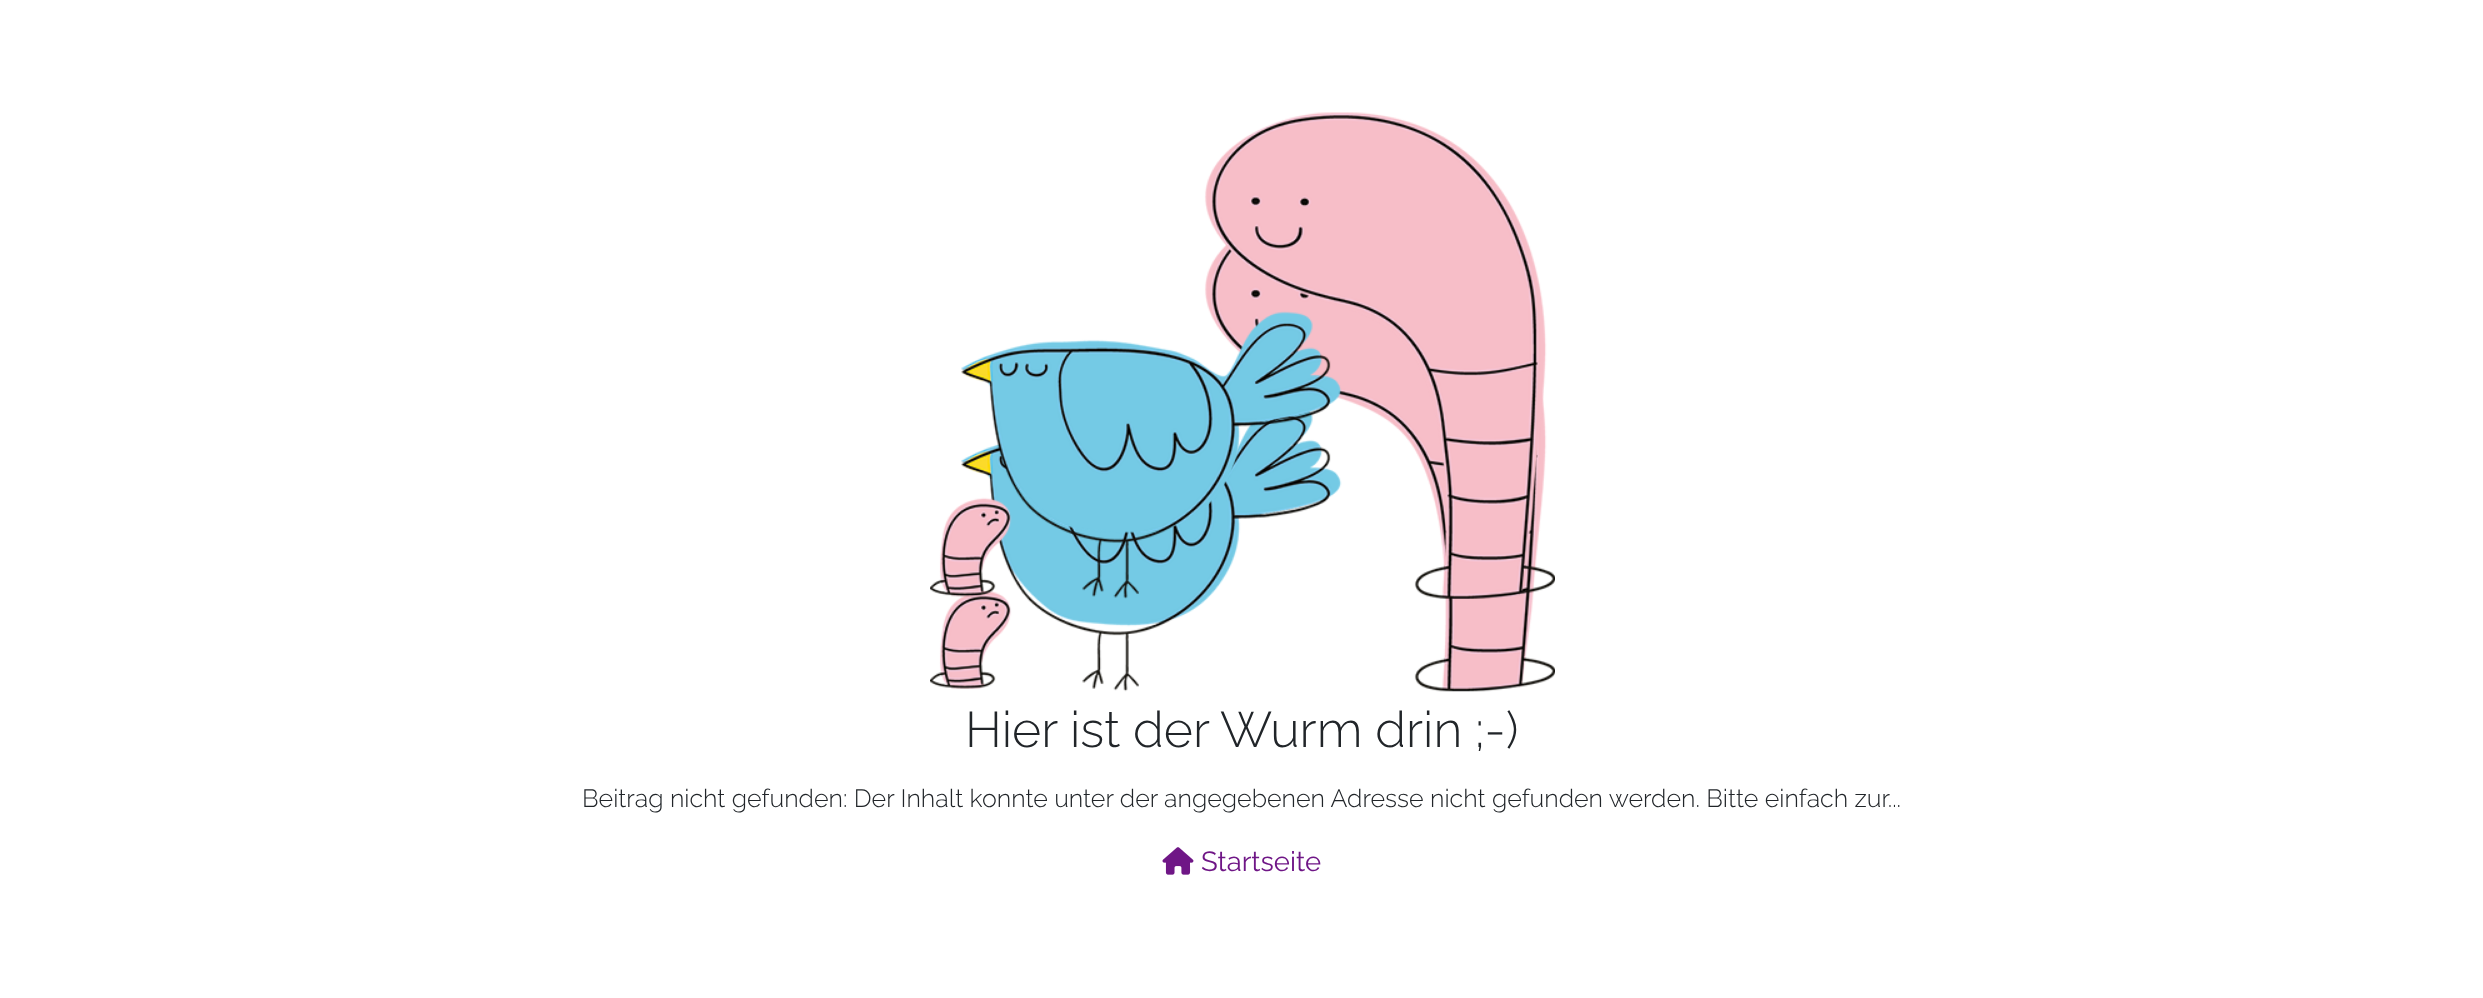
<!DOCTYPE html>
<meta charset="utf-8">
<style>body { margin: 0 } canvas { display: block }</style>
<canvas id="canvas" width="2483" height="998"></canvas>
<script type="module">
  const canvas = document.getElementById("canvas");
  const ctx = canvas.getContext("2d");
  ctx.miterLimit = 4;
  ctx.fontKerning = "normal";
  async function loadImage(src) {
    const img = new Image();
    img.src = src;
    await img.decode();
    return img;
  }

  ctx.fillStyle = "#ffffff";
  ctx.fillRect(0, 0, 2483, 998);
  ctx.drawImage(await loadImage("img1.png"), 930, 243, 625, 449);
  ctx.drawImage(await loadImage("img2.png"), 930, 112, 625, 487);
  ctx.font = "100 50px Raleway";
  ctx.fillStyle = "#212529";
  ctx.fillText("Hier ist der Wurm drin ;-)", 965, 747);
  ctx.font = "100 25px Raleway";
  ctx.fillText("Beitrag nicht gefunden: Der Inhalt konnte unter der angegebenen Adresse nicht gefunden werden. Bitte einfach zur...", 582, 807);
  ctx.drawImage(await loadImage("img3.png"), 1162, 847, 32, 28);
  ctx.font = "100 27.5px 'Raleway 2'";
  ctx.fillStyle = "#6f1686";
  ctx.fillText("Startseite", 1201, 871);
</script>
